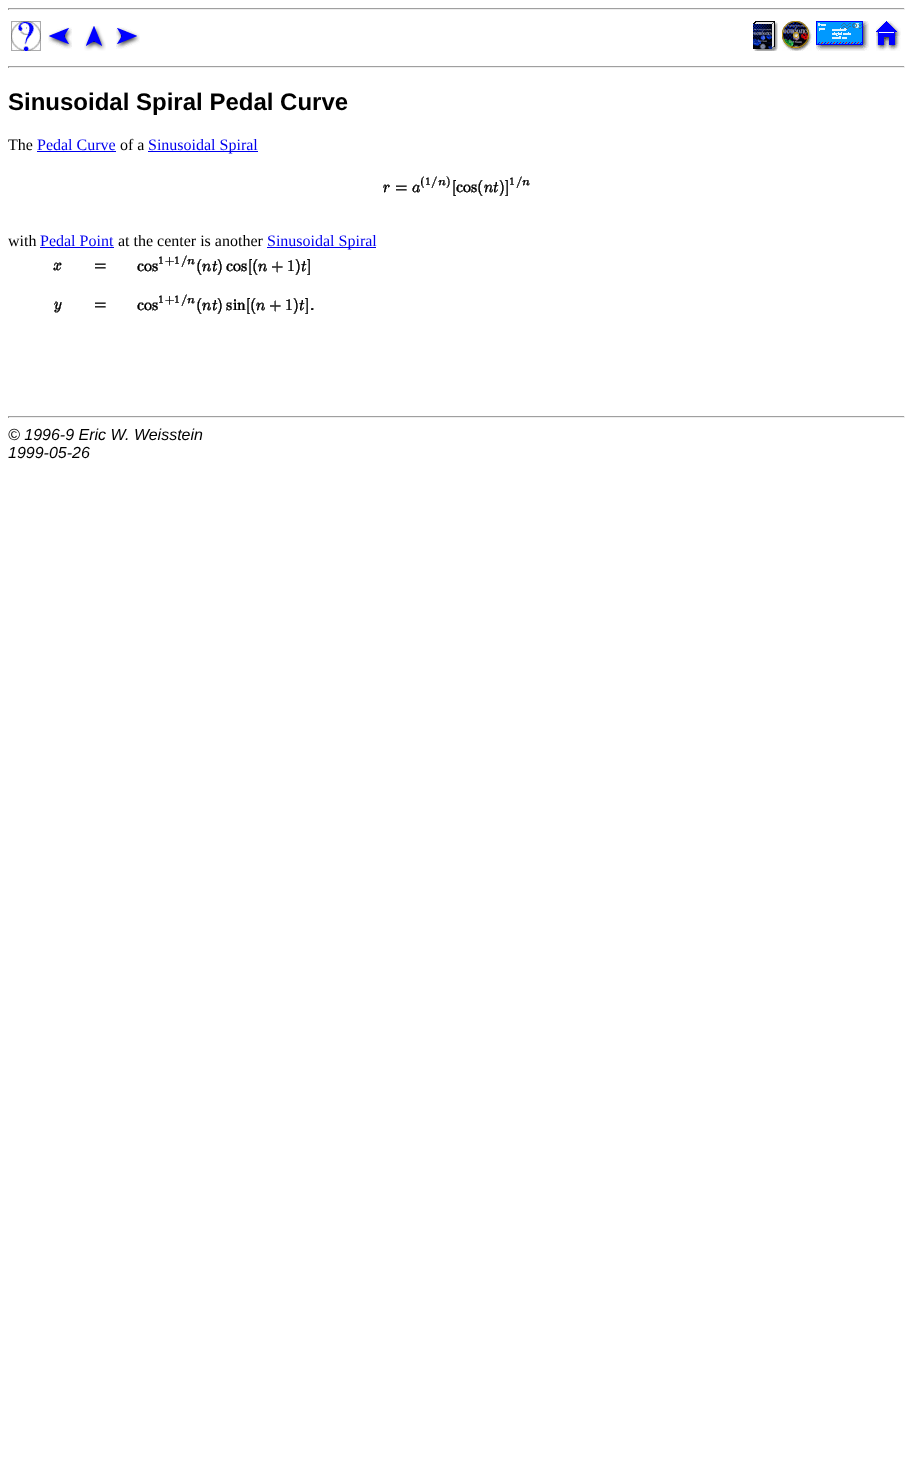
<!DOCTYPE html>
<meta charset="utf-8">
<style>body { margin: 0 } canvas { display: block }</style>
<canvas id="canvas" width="913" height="1480"></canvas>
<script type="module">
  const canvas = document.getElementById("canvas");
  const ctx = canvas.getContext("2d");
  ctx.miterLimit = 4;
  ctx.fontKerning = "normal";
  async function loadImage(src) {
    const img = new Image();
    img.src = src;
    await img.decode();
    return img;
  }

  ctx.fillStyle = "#ffffff";
  ctx.fillRect(0, 0, 913, 1480);
  ctx.fillStyle = "#9f9f9f";
  ctx.fillRect(8, 8, 897, 1);
  ctx.fillStyle = "#eeeeee";
  ctx.fillRect(904, 8, 1, 2);
  ctx.fillRect(8, 9, 897, 1);
  ctx.fillStyle = "#9f9f9f";
  ctx.fillRect(8, 8, 1, 2);
  ctx.drawImage(await loadImage("img1.png"), 11, 21, 30, 30);
  ctx.drawImage(await loadImage("img2.png"), 48, 27, 24, 22);
  ctx.drawImage(await loadImage("img3.png"), 84, 26, 22, 25);
  ctx.drawImage(await loadImage("img4.png"), 116, 27, 24, 22);
  ctx.drawImage(await loadImage("img5.png"), 753, 21, 25, 30);
  ctx.drawImage(await loadImage("img6.png"), 782, 21, 30, 30);
  ctx.drawImage(await loadImage("img7.png"), 816, 21, 53, 30);
  ctx.drawImage(await loadImage("img8.png"), 876, 21, 25, 30);
  ctx.fillRect(8, 66, 897, 1);
  ctx.fillStyle = "#eeeeee";
  ctx.fillRect(904, 66, 1, 2);
  ctx.fillRect(8, 67, 897, 1);
  ctx.fillStyle = "#9f9f9f";
  ctx.fillRect(8, 66, 1, 2);
  ctx.font = "bold 24px Liberation Sans";
  ctx.fillStyle = "#000000";
  ctx.fillText("Sinusoidal Spiral Pedal Curve", 8, 110);
  ctx.font = "16px Liberation Serif";
  ctx.fillText("The", 8, 150);
  ctx.fillStyle = "#0000ee";
  ctx.fillText("Pedal Curve", 37, 150);
  ctx.fillRect(37, 151, 79, 1);
  ctx.fillStyle = "#000000";
  ctx.fillText("of a", 120, 150);
  ctx.fillStyle = "#0000ee";
  ctx.fillRect(148, 151, 110, 1);
  ctx.fillText("Sinusoidal Spiral", 148, 150);
  ctx.drawImage(await loadImage("img9.png"), 383, 176, 147, 20);
  ctx.fillStyle = "#000000";
  ctx.fillText("with", 8, 246);
  ctx.fillStyle = "#0000ee";
  ctx.fillText("Pedal Point", 40, 246);
  ctx.fillRect(40, 247, 74, 1);
  ctx.fillStyle = "#000000";
  ctx.fillText("at the center is another", 118, 246);
  ctx.fillStyle = "#0000ee";
  ctx.fillRect(267, 247, 109, 1);
  ctx.fillText("Sinusoidal Spiral", 267, 246);
  ctx.drawImage(await loadImage("img10.png"), 53, 262, 9, 9);
  ctx.drawImage(await loadImage("img11.png"), 95, 263, 11, 6);
  ctx.drawImage(await loadImage("img12.png"), 137, 255, 173, 20);
  ctx.drawImage(await loadImage("img13.png"), 54, 301, 8, 12);
  ctx.drawImage(await loadImage("img11.png"), 95, 302, 11, 6);
  ctx.drawImage(await loadImage("img14.png"), 137, 294, 177, 20);
  ctx.fillStyle = "#9f9f9f";
  ctx.fillRect(8, 416, 897, 1);
  ctx.fillStyle = "#eeeeee";
  ctx.fillRect(904, 416, 1, 2);
  ctx.fillRect(8, 417, 897, 1);
  ctx.fillStyle = "#9f9f9f";
  ctx.fillRect(8, 416, 1, 2);
  ctx.font = "italic 16px Liberation Sans";
  ctx.fillStyle = "#000000";
  ctx.fillText("© 1996-9 Eric W. Weisstein", 8, 440);
  ctx.fillText("1999-05-26", 8, 458);
</script>
